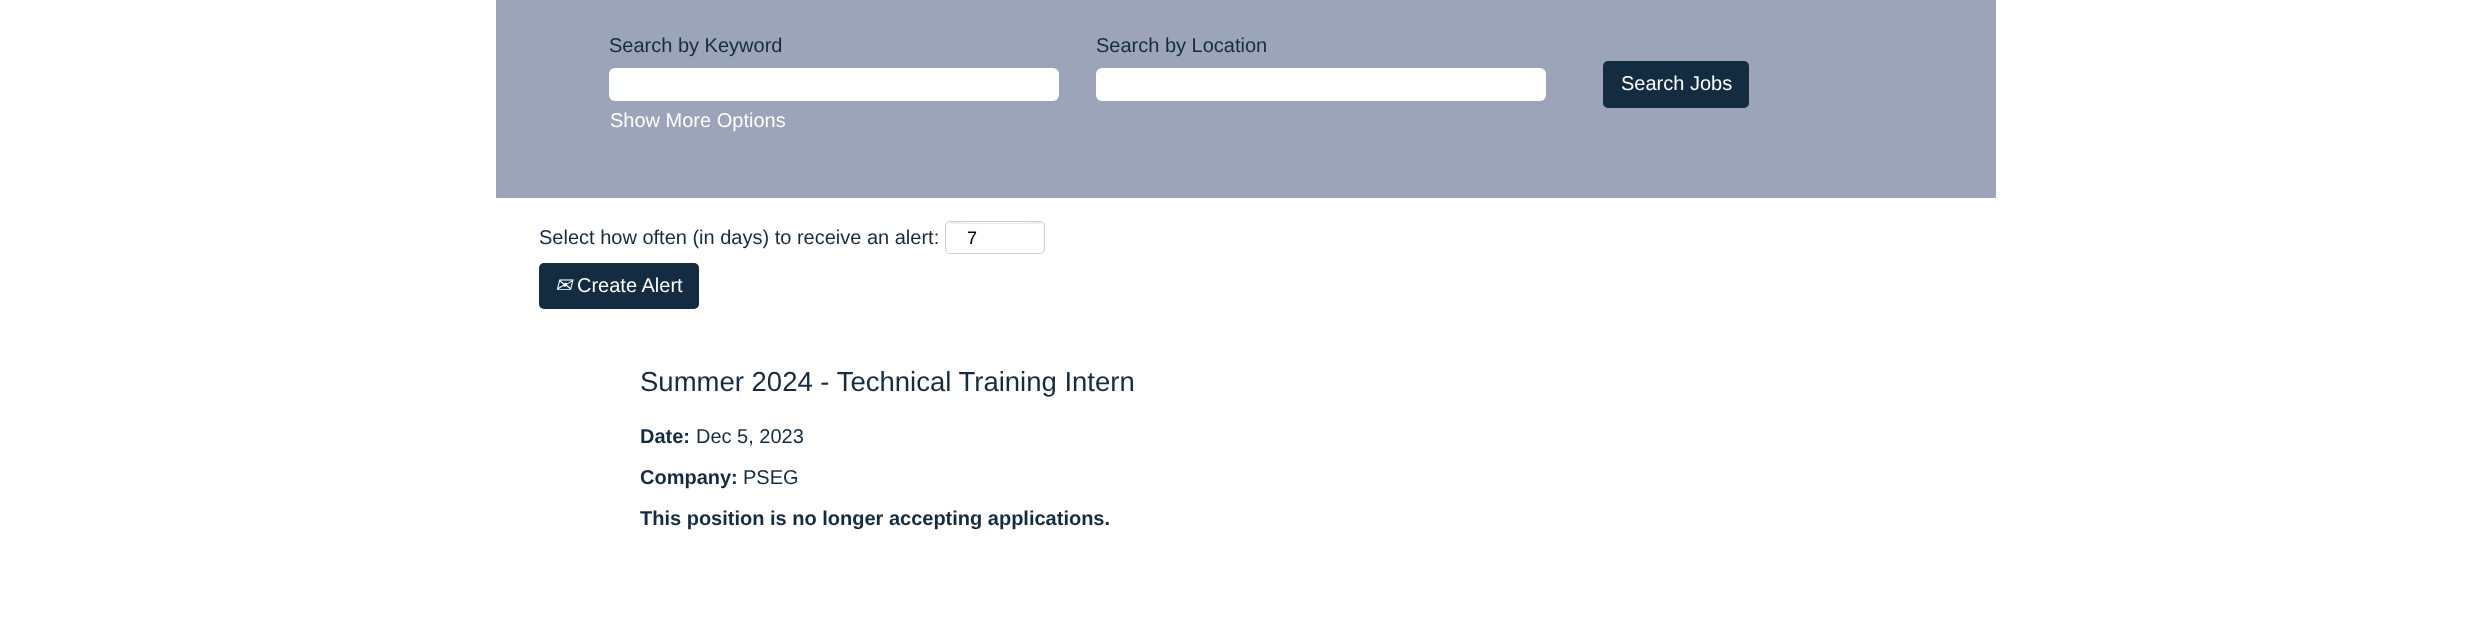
<!DOCTYPE html>
<meta charset="utf-8">
<style>body { margin: 0 } canvas { display: block }</style>
<canvas id="canvas" width="2492" height="623"></canvas>
<script type="module">
  const canvas = document.getElementById("canvas");
  const ctx = canvas.getContext("2d");
  ctx.miterLimit = 4;
  ctx.fontKerning = "normal";

  ctx.fillStyle = "#ffffff";
  ctx.fillRect(0, 0, 2492, 623);
  ctx.fillStyle = "#9ba4b8";
  ctx.fillRect(496, 0, 1500, 198);
  ctx.font = "20px Liberation Sans";
  ctx.fillStyle = "#142c41";
  ctx.fillText("Search by Keyword", 609, 52);
  ctx.fillStyle = "#ffffff";
  ctx.beginPath();
  ctx.roundRect(609, 68, 450, 33, 6);
  ctx.fill();
  ctx.fillStyle = "#142c41";
  ctx.fillText("Search by Location", 1096, 52);
  ctx.fillStyle = "#ffffff";
  ctx.beginPath();
  ctx.roundRect(1096, 68, 450, 33, 6);
  ctx.fill();
  ctx.fillText("Show More Options", 610, 127);
  ctx.fillStyle = "#142c41";
  ctx.beginPath();
  ctx.roundRect(1603, 61, 146, 47, 5);
  ctx.fill();
  ctx.fillStyle = "#ffffff";
  ctx.fillText("Search Jobs", 1621, 90);
  ctx.fillStyle = "#142c41";
  ctx.fillText("Select how often (in days) to receive an alert:", 539, 244);
  ctx.fillStyle = "#ececec";
  ctx.beginPath();
  ctx.moveTo(950, 224);
  ctx.lineTo(1040, 224);
  ctx.bezierCurveTo(1042, 224, 1044, 225, 1044, 228);
  ctx.bezierCurveTo(1044, 219, 1029, 223, 1025, 223);
  ctx.lineTo(965, 223);
  ctx.bezierCurveTo(961, 223, 946, 219, 946, 228);
  ctx.bezierCurveTo(946, 225, 948, 224, 950, 224);
  ctx.closePath();
  ctx.fill();
  ctx.beginPath();
  ctx.roundRect(945.5, 221.5, 99, 32, 4.5);
  ctx.strokeStyle = "#cccccc";
  ctx.stroke();
  ctx.font = "18px Liberation Sans";
  ctx.fillStyle = "#000000";
  ctx.fillText("7", 967, 244);
  ctx.fillStyle = "#142c41";
  ctx.beginPath();
  ctx.roundRect(539, 263, 160, 46, 5);
  ctx.fill();
  ctx.font = "italic 20px DejaVu Sans";
  ctx.fillStyle = "#ffffff";
  ctx.fillText("✉", 555, 292);
  ctx.font = "20px Liberation Sans";
  ctx.fillText("Create Alert", 577, 292);
  ctx.font = "27.5px Liberation Sans";
  ctx.fillStyle = "#142c41";
  ctx.fillText("Summer 2024 - Technical Training Intern", 640, 391);
  ctx.font = "bold 20px Liberation Sans";
  ctx.fillText("Date:", 640, 443);
  ctx.font = "20px Liberation Sans";
  ctx.fillText("Dec 5, 2023", 696, 443);
  ctx.font = "bold 20px Liberation Sans";
  ctx.fillText("Company:", 640, 484);
  ctx.font = "20px Liberation Sans";
  ctx.fillText("PSEG", 743, 484);
  ctx.font = "bold 20px Liberation Sans";
  ctx.fillText("This position is no longer accepting applications.", 640, 525);
</script>
